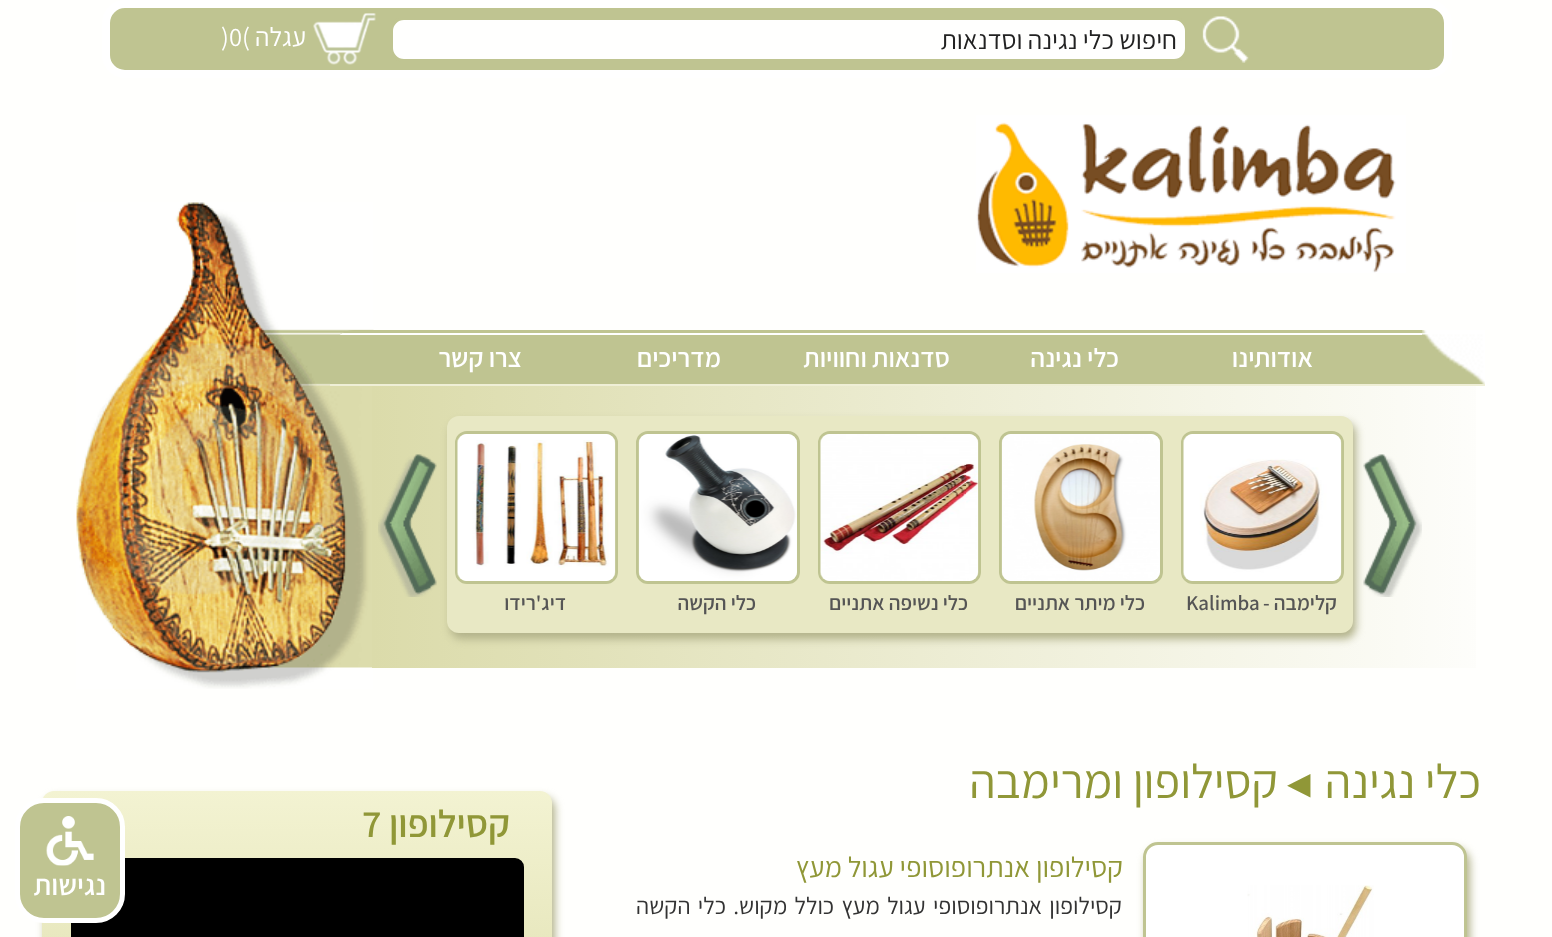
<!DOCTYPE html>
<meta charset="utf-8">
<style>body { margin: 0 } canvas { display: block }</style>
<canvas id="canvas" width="1552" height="937"></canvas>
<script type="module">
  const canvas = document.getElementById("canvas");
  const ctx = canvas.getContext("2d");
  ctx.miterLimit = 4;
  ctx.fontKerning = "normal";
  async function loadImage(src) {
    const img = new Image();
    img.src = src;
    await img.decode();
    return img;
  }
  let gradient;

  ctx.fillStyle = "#fffffd";
  ctx.fillRect(0, 0, 1552, 937);
  ctx.fillStyle = "#bfc491";
  ctx.beginPath();
  ctx.roundRect(106, 4, 1342, 70, 19);
  ctx.fill();
  ctx.strokeStyle = "#ffffff";
  ctx.lineWidth = 8;
  ctx.stroke();
  ctx.drawImage(await loadImage("img1.png"), 1202, 16, 47, 47);
  ctx.fillStyle = "#fffffe";
  ctx.beginPath();
  ctx.roundRect(391.5, 18.5, 795, 42, 12.5);
  ctx.fill();
  ctx.strokeStyle = "#bfc491";
  ctx.lineWidth = 3;
  ctx.stroke();
  ctx.direction = "rtl";
  ctx.font = "26.5px Assistant";
  ctx.fillStyle = "#222222";
  ctx.fillText("חיפוש כלי נגינה וסדנאות", 1177, 49);
  ctx.drawImage(await loadImage("img2.png"), 313, 13, 63, 52);
  ctx.fillStyle = "#ffffff";
  ctx.fillText("עגלה", 306, 46);
  ctx.direction = "ltr";
  ctx.fillText("(", 242, 46);
  ctx.fillText("0", 229, 46);
  ctx.fillText(")", 221, 46);
  ctx.drawImage(await loadImage("img3.png"), 76, 202, 298, 487);
  ctx.drawImage(await loadImage("img4.png"), 976, 115, 430, 158);
  ctx.fillStyle = "#bfc491";
  ctx.beginPath();
  ctx.roundRect(330, 330, 1155, 56, [24, 0, 0, 0]);
  ctx.fill();
  ctx.fillStyle = "#efefd6";
  ctx.fillRect(330, 384, 1155, 2);
  ctx.drawImage(await loadImage("img5.png"), 1422, 330, 63, 54);
  ctx.save();
  ctx.beginPath();
  ctx.roundRect(330, 330, 1155, 54, [24, 0, 0, 0]);
  ctx.clip();
  ctx.fillStyle = "#ffffff";
  ctx.fillRect(339, 333, 1083, 2);
  ctx.restore();
  ctx.direction = "rtl";
  ctx.font = "600 26.5px Assistant";
  ctx.fillStyle = "#ffffff";
  ctx.fillText("אודותינו", 1313, 367);
  ctx.fillText("כלי נגינה", 1119, 367);
  ctx.fillText("סדנאות וחוויות", 950, 367);
  ctx.fillText("מדריכים", 721, 367);
  ctx.fillText("צרו קשר", 522, 367);
  gradient = ctx.createLinearGradient(372, 527, 1497, 527);
  gradient.addColorStop(0, "#dbdbaa");
  gradient.addColorStop(1, "#fefefc");
  ctx.fillStyle = gradient;
  ctx.fillRect(372, 386, 1104, 282);
  ctx.drawImage(await loadImage("img6.png"), 1363, 454, 59, 143);
  ctx.drawImage(await loadImage("img7.png"), 378, 454, 59, 143);
  ctx.fillStyle = "#b2b28a";
  ctx.filter = "blur(4px)";
  ctx.beginPath();
  ctx.roundRect(450, 422, 906, 217, 12);
  ctx.fill();
  ctx.filter = "none";
  ctx.fillStyle = "#e8e8c4";
  ctx.beginPath();
  ctx.roundRect(447, 416, 906, 217, 12);
  ctx.fill();
  ctx.fillStyle = "#fdfdfd";
  ctx.beginPath();
  ctx.roundRect(1182.5, 432.5, 160, 150, 10.5);
  ctx.fill();
  ctx.stroke();
  ctx.drawImage(await loadImage("img8.png"), 1183, 434, 159, 147);
  ctx.font = "600 21px Assistant";
  ctx.fillStyle = "#555555";
  ctx.fillText("קלימבה -", 1337, 610);
  ctx.direction = "ltr";
  ctx.fillText("Kalimba", 1186, 610);
  ctx.fillStyle = "#fdfdfd";
  ctx.beginPath();
  ctx.roundRect(1000.5, 432.5, 161, 150, 10.5);
  ctx.fill();
  ctx.stroke();
  ctx.drawImage(await loadImage("img9.png"), 1001, 434, 159, 147);
  ctx.direction = "rtl";
  ctx.fillStyle = "#555555";
  ctx.fillText("כלי מיתר אתניים", 1145, 610);
  ctx.fillStyle = "#fdfdfd";
  ctx.beginPath();
  ctx.roundRect(819.5, 432.5, 160, 150, 10.5);
  ctx.fill();
  ctx.stroke();
  ctx.drawImage(await loadImage("img10.png"), 820, 434, 159, 147);
  ctx.fillStyle = "#555555";
  ctx.fillText("כלי נשיפה אתניים", 968, 610);
  ctx.fillStyle = "#fdfdfd";
  ctx.beginPath();
  ctx.roundRect(637.5, 432.5, 161, 150, 10.5);
  ctx.fill();
  ctx.stroke();
  ctx.drawImage(await loadImage("img11.png"), 638, 434, 159, 147);
  ctx.fillStyle = "#555555";
  ctx.fillText("כלי הקשה", 756, 610);
  ctx.fillStyle = "#fdfdfd";
  ctx.beginPath();
  ctx.roundRect(456.5, 432.5, 160, 150, 10.5);
  ctx.fill();
  ctx.stroke();
  ctx.drawImage(await loadImage("img12.png"), 457, 434, 159, 147);
  ctx.fillStyle = "#555555";
  ctx.fillText("דיג'רידו", 566, 610);
  ctx.fillStyle = "#b2b28a";
  ctx.filter = "blur(4px)";
  ctx.beginPath();
  ctx.roundRect(45, 797, 510, 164, 12);
  ctx.fill();
  ctx.filter = "none";
  gradient = ctx.createLinearGradient(297, 791, 297, 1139);
  gradient.addColorStop(0, "#f3f3d2");
  gradient.addColorStop(1, "#dadaa6");
  ctx.fillStyle = gradient;
  ctx.beginPath();
  ctx.roundRect(42, 791, 510, 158, 12);
  ctx.fill();
  ctx.fillStyle = "#000000";
  ctx.beginPath();
  ctx.roundRect(72, 859, 451, 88, 8);
  ctx.fill();
  ctx.strokeStyle = "#000000";
  ctx.lineWidth = 2;
  ctx.stroke();
  ctx.fillStyle = "#bfc491";
  ctx.beginPath();
  ctx.roundRect(17.5, 800.5, 105, 120, 26.5);
  ctx.fill();
  ctx.strokeStyle = "#ffffff";
  ctx.lineWidth = 5;
  ctx.stroke();
  ctx.drawImage(await loadImage("img13.png"), 46, 816, 48, 50);
  ctx.font = "600 28.75px Assistant";
  ctx.fillStyle = "#ffffff";
  ctx.fillText("נגישות", 106, 895);
  ctx.font = "48px Assistant";
  ctx.fillStyle = "#909737";
  ctx.fillText("כלי נגינה", 1481, 798);
  ctx.direction = "ltr";
  ctx.font = "47px DejaVu Sans";
  ctx.fillText("◂", 1287, 798);
  ctx.direction = "rtl";
  ctx.font = "48px Assistant";
  ctx.fillText("קסילופון ומרימבה", 1278, 798);
  ctx.fillStyle = "#b2b28a";
  ctx.filter = "blur(4px)";
  ctx.beginPath();
  ctx.roundRect(1146, 848, 324, 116, 15);
  ctx.fill();
  ctx.filter = "none";
  ctx.fillStyle = "#ffffff";
  ctx.beginPath();
  ctx.roundRect(1144.5, 843.5, 321, 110, 13.5);
  ctx.fill();
  ctx.strokeStyle = "#bfc491";
  ctx.lineWidth = 3;
  ctx.stroke();
  ctx.drawImage(await loadImage("img14.png"), 1247, 885, 127, 52);
  ctx.font = "28.75px Assistant";
  ctx.fillStyle = "#909737";
  ctx.fillText("קסילופון אנתרופוסופי עגול מעץ", 1123, 877);
  ctx.wordSpacing = "2.5px";
  ctx.font = "24px Assistant";
  ctx.fillStyle = "#333333";
  ctx.fillText("קסילופון אנתרופוסופי עגול מעץ כולל מקוש. כלי הקשה", 1122, 914);
  ctx.wordSpacing = "0px";
  ctx.font = "600 38.5px Assistant";
  ctx.fillStyle = "#909737";
  ctx.fillText("קסילופון", 510, 837);
  ctx.direction = "ltr";
  ctx.fillText("7", 362, 837);
</script>
